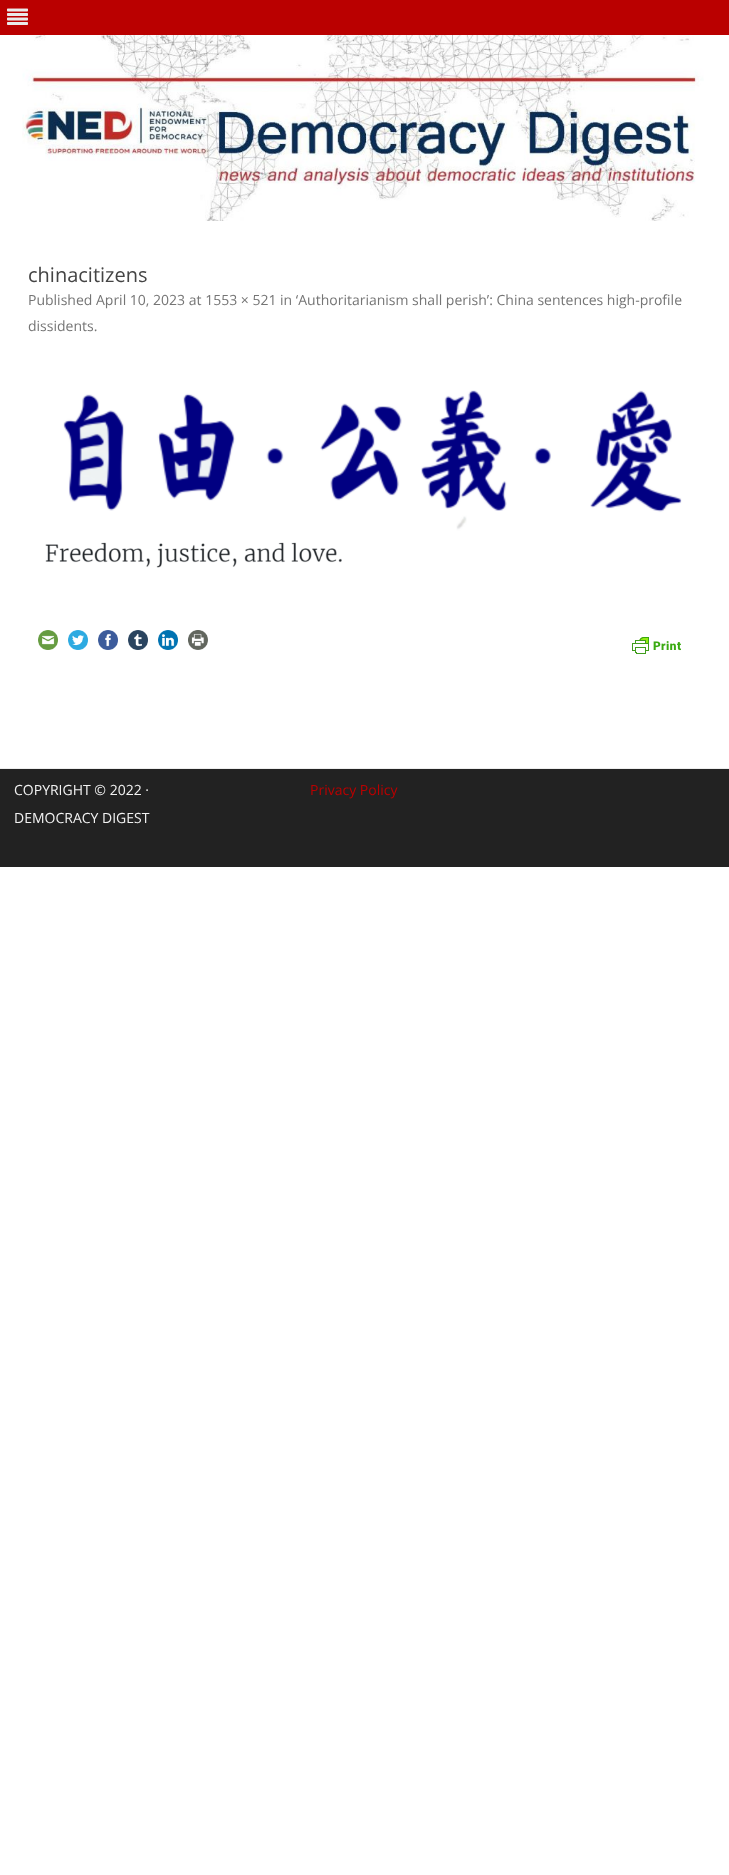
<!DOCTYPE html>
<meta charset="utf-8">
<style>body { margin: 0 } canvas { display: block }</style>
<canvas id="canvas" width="729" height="1875"></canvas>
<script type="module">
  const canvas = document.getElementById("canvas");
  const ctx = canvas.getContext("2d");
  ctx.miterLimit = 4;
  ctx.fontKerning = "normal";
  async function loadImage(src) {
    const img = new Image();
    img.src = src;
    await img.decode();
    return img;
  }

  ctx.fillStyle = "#ffffff";
  ctx.fillRect(0, 0, 729, 1875);
  ctx.fillStyle = "#ba0000";
  ctx.fillRect(0, 0, 729, 35);
  ctx.drawImage(await loadImage("img1.png"), 7, 8, 21, 17);
  ctx.drawImage(await loadImage("img2.png"), 22, 35, 682, 186);
  ctx.font = "20px Open Sans";
  ctx.fillStyle = "#444444";
  ctx.fillText("chinacitizens", 28, 282);
  ctx.font = "14px Open Sans";
  ctx.fillStyle = "#757575";
  ctx.fillText("Published April 10, 2023 at 1553 × 521 in ‘Authoritarianism shall perish’: China sentences high-profile", 28, 305);
  ctx.fillText("dissidents.", 28, 331);
  ctx.drawImage(await loadImage("img3.png"), 45, 390, 637, 178);
  ctx.drawImage(await loadImage("img4.png"), 38, 630, 20, 20);
  ctx.drawImage(await loadImage("img5.png"), 68, 630, 20, 20);
  ctx.drawImage(await loadImage("img6.png"), 98, 630, 20, 20);
  ctx.drawImage(await loadImage("img7.png"), 128, 630, 20, 20);
  ctx.drawImage(await loadImage("img8.png"), 158, 630, 20, 20);
  ctx.drawImage(await loadImage("img9.png"), 188, 630, 20, 20);
  ctx.drawImage(await loadImage("img10.png"), 632, 637, 49, 17);
  ctx.fillStyle = "#222222";
  ctx.fillRect(0, 769, 729, 98);
  ctx.fillStyle = "#ededed";
  ctx.fillRect(0, 768, 729, 1);
  ctx.fillStyle = "#f2f2f2";
  ctx.fillText("COPYRIGHT © 2022 ·", 14, 795);
  ctx.fillText("DEMOCRACY DIGEST", 14, 823);
  ctx.fillStyle = "#ba0000";
  ctx.fillText("Privacy Policy", 310, 795);
</script>
